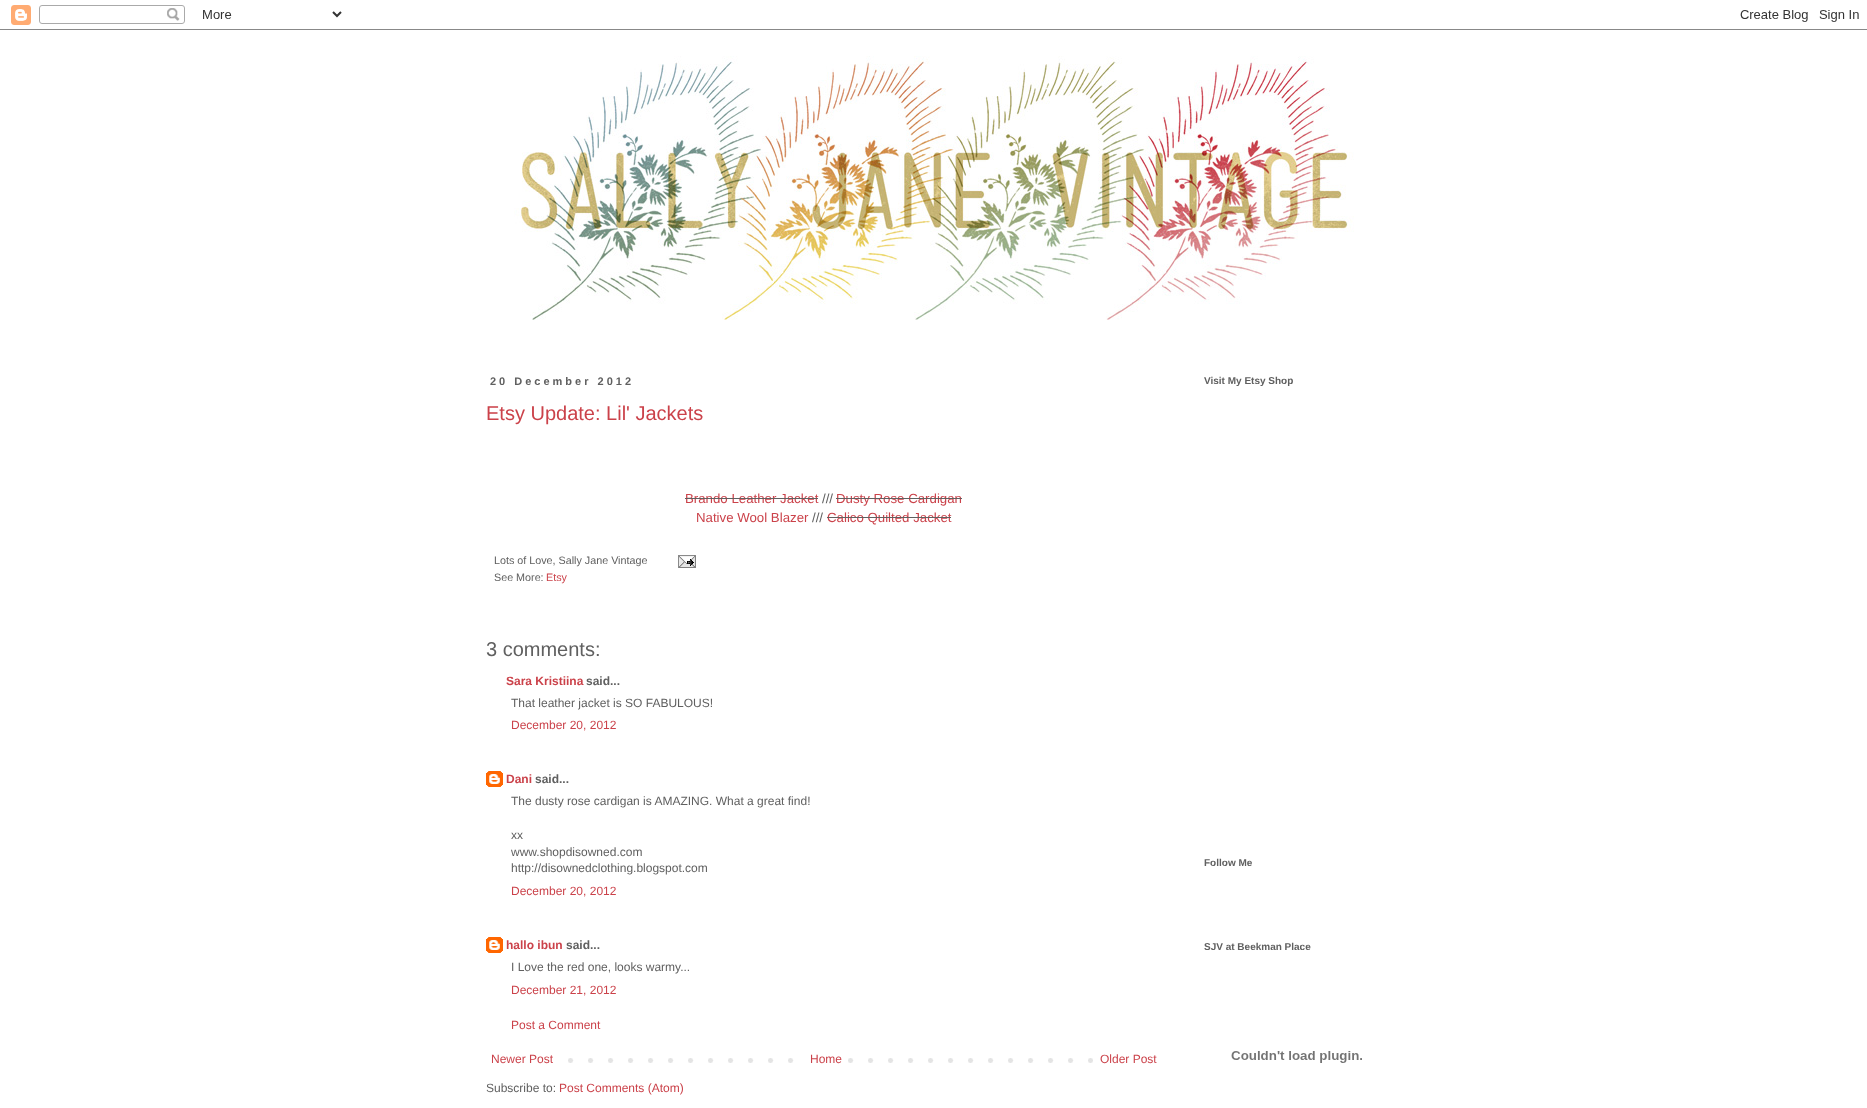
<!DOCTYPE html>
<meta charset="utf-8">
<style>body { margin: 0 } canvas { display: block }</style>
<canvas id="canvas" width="1867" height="1108"></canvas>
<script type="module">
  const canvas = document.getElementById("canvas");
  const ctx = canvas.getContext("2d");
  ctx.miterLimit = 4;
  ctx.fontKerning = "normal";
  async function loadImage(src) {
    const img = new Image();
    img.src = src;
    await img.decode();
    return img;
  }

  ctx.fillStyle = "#ffffff";
  ctx.fillRect(0, 0, 1867, 1108);
  ctx.drawImage(await loadImage("img1.png"), 0, 5, 1867, 25);
  ctx.drawImage(await loadImage("img2.png"), 514, 56, 840, 264);
  ctx.letterSpacing = "3px";
  ctx.font = "bold 11px Liberation Sans";
  ctx.fillStyle = "#606060";
  ctx.fillText("20 December 2012", 490, 385);
  ctx.letterSpacing = "0px";
  ctx.font = "20px Liberation Sans";
  ctx.fillStyle = "#cb424a";
  ctx.fillText("Etsy Update: Lil' Jackets", 486, 420);
  ctx.font = "13.25px Liberation Sans";
  ctx.fillText("Brando Leather Jacket", 685, 503);
  ctx.fillStyle = "#606060";
  ctx.fillRect(685, 498, 133, 1);
  ctx.fillText("///", 822, 503);
  ctx.fillStyle = "#cb424a";
  ctx.fillText("Dusty Rose Cardigan", 836, 503);
  ctx.fillStyle = "#606060";
  ctx.fillRect(836, 498, 126, 1);
  ctx.fillStyle = "#cb424a";
  ctx.fillText("Native Wool Blazer", 696, 522);
  ctx.fillStyle = "#606060";
  ctx.fillText("///", 812, 522);
  ctx.fillStyle = "#cb424a";
  ctx.fillText("Calico Quilted Jacket", 827, 522);
  ctx.fillStyle = "#606060";
  ctx.fillRect(827, 517, 124, 1);
  ctx.font = "10.75px Liberation Sans";
  ctx.fillText("Lots of Love, Sally Jane Vintage", 494, 564);
  ctx.drawImage(await loadImage("img3.png"), 678, 555, 18, 13);
  ctx.fillText("See More:", 494, 581);
  ctx.fillStyle = "#cb424a";
  ctx.fillText("Etsy", 546, 581);
  ctx.font = "20px Liberation Sans";
  ctx.fillStyle = "#606060";
  ctx.fillText("3 comments:", 486, 656);
  ctx.font = "bold 12px Liberation Sans";
  ctx.fillStyle = "#cb424a";
  ctx.fillText("Sara Kristiina", 506, 685);
  ctx.fillStyle = "#606060";
  ctx.fillText("said...", 586, 685);
  ctx.font = "12px Liberation Sans";
  ctx.fillText("That leather jacket is SO FABULOUS!", 511, 707);
  ctx.fillStyle = "#cb424a";
  ctx.fillText("December 20, 2012", 511, 729);
  ctx.drawImage(await loadImage("img4.png"), 486, 771, 17, 16);
  ctx.font = "bold 12px Liberation Sans";
  ctx.fillText("Dani", 506, 783);
  ctx.fillStyle = "#606060";
  ctx.fillText("said...", 535, 783);
  ctx.font = "12px Liberation Sans";
  ctx.fillText("The dusty rose cardigan is AMAZING. What a great find!", 511, 805);
  ctx.fillText("xx", 511, 839);
  ctx.fillText("www.shopdisowned.com", 511, 856);
  ctx.fillText("http://disownedclothing.blogspot.com", 511, 872);
  ctx.fillStyle = "#cb424a";
  ctx.fillText("December 20, 2012", 511, 895);
  ctx.drawImage(await loadImage("img4.png"), 486, 937, 17, 16);
  ctx.font = "bold 12px Liberation Sans";
  ctx.fillText("hallo ibun", 506, 949);
  ctx.fillStyle = "#606060";
  ctx.fillText("said...", 566, 949);
  ctx.font = "12px Liberation Sans";
  ctx.fillText("I Love the red one, looks warmy...", 511, 971);
  ctx.fillStyle = "#cb424a";
  ctx.fillText("December 21, 2012", 511, 994);
  ctx.fillText("Post a Comment", 511, 1029);
  ctx.drawImage(await loadImage("img5.png"), 568, 1058, 525, 5);
  ctx.fillText("Newer Post", 491, 1063);
  ctx.fillStyle = "#ffffff";
  ctx.fillRect(808, 1058, 26, 5);
  ctx.fillStyle = "#cb424a";
  ctx.fillText("Home", 810, 1063);
  ctx.fillText("Older Post", 1100, 1063);
  ctx.fillStyle = "#606060";
  ctx.fillText("Subscribe to:", 486, 1092);
  ctx.fillStyle = "#cb424a";
  ctx.fillText("Post Comments (Atom)", 559, 1092);
  ctx.font = "bold 10px Liberation Sans";
  ctx.fillStyle = "#606060";
  ctx.fillText("Visit My Etsy Shop", 1204, 384);
  ctx.fillText("Follow Me", 1204, 866);
  ctx.fillText("SJV at Beekman Place", 1204, 950);
  ctx.drawImage(await loadImage("img6.png"), 1231, 1051, 131, 12);
</script>
